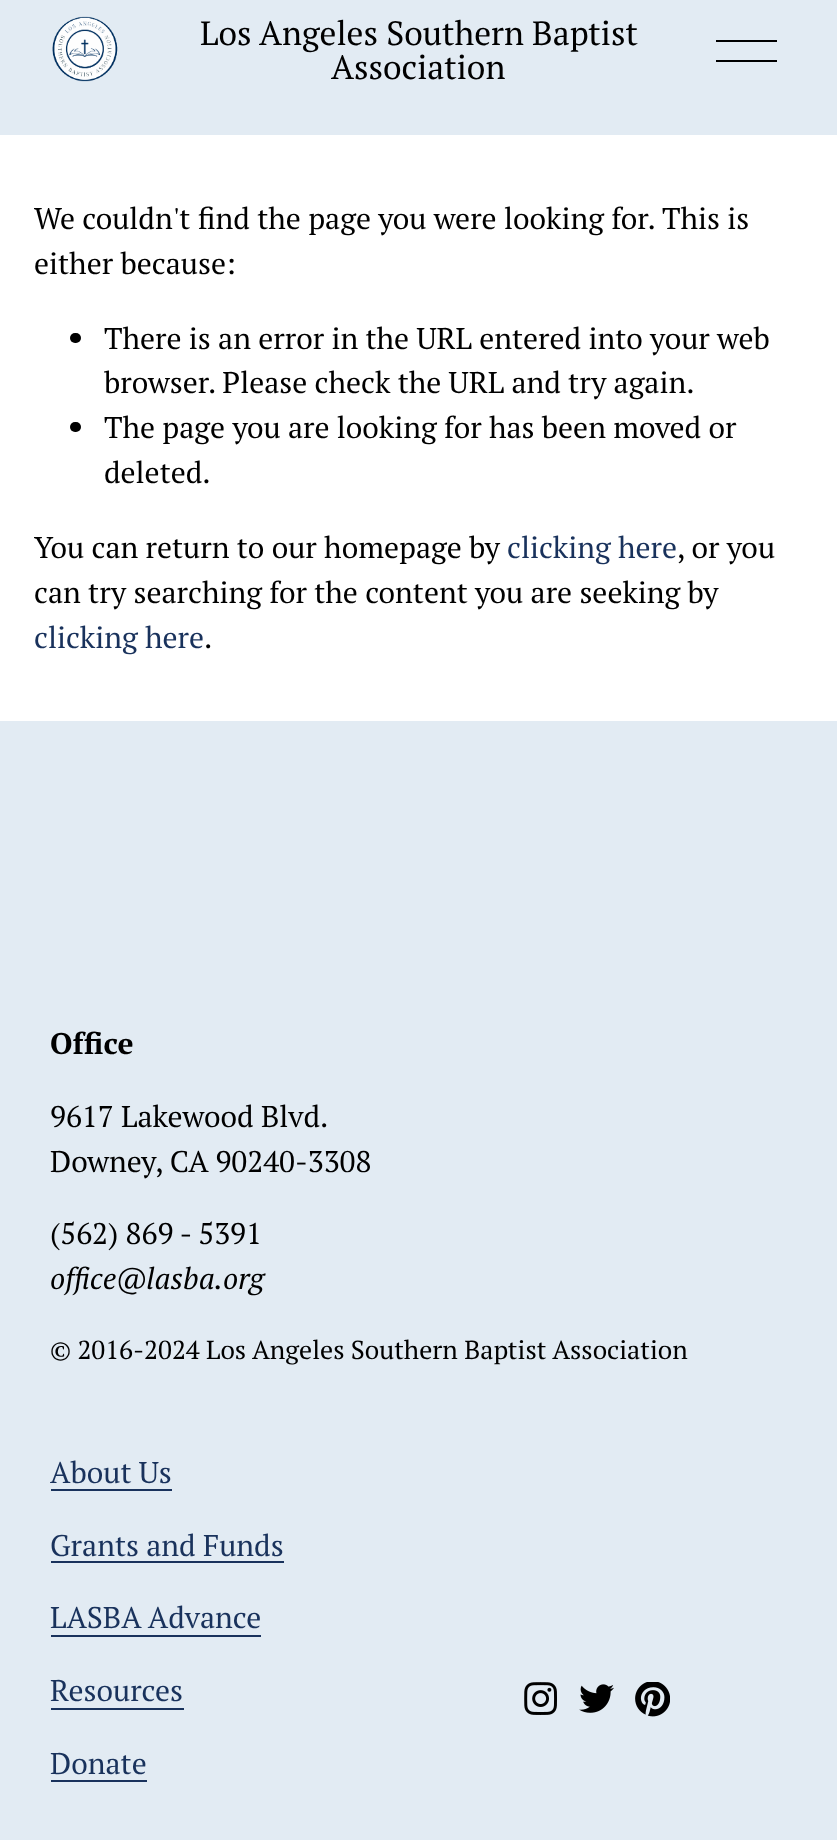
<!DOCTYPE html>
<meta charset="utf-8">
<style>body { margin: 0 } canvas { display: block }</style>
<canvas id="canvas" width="837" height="1840"></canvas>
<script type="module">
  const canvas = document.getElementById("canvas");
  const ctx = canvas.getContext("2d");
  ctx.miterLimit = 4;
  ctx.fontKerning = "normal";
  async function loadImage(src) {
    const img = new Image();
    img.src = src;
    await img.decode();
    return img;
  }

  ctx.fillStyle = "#ffffff";
  ctx.fillRect(0, 0, 837, 1840);
  ctx.fillStyle = "#e2ebf3";
  ctx.fillRect(0, 0, 837, 135);
  ctx.drawImage(await loadImage("img1.png"), 52, 16, 66, 66);
  ctx.font = "33.6px PT Serif";
  ctx.fillStyle = "#000000";
  ctx.fillText("Los Angeles Southern Baptist", 200, 45);
  ctx.fillText("Association", 331, 79);
  ctx.fillRect(716, 40, 61, 2);
  ctx.fillRect(716, 60, 61, 2);
  ctx.font = "29.9px PT Serif";
  ctx.fillText("We couldn't find the page you were looking for. This is", 34, 229);
  ctx.fillText("either because:", 34, 274);
  ctx.beginPath();
  ctx.roundRect(70, 333, 11, 10, 5);
  ctx.fill();
  ctx.fillText("There is an error in the URL entered into your web", 104, 349);
  ctx.fillText("browser. Please check the URL and try again.", 104, 393);
  ctx.beginPath();
  ctx.roundRect(70, 422, 11, 10, 5);
  ctx.fill();
  ctx.fillText("The page you are looking for has been moved or", 104, 438);
  ctx.fillText("deleted.", 104, 483);
  ctx.fillText("You can return to our homepage by", 34, 558);
  ctx.fillStyle = "#19325c";
  ctx.fillText("clicking here", 507, 558);
  ctx.fillStyle = "#000000";
  ctx.fillText(", or you", 677, 558);
  ctx.fillText("can try searching for the content you are seeking by", 34, 603);
  ctx.fillStyle = "#19325c";
  ctx.fillText("clicking here", 34, 648);
  ctx.fillStyle = "#000000";
  ctx.fillText(".", 204, 648);
  ctx.fillStyle = "#e2ebf3";
  ctx.fillRect(0, 721, 837, 1119);
  ctx.font = "bold 29.9px PT Serif";
  ctx.fillStyle = "#000000";
  ctx.fillText("Office", 50, 1054);
  ctx.font = "29.9px PT Serif";
  ctx.fillText("9617 Lakewood Blvd.", 50, 1127);
  ctx.fillText("Downey, CA 90240-3308", 50, 1172);
  ctx.fillText("(562) 869 - 5391", 50, 1244);
  ctx.font = "italic 29.9px PT Serif";
  ctx.fillText("office@lasba.org", 50, 1289);
  ctx.font = "26.1px PT Serif";
  ctx.fillText("© 2016-2024 Los Angeles Southern Baptist Association", 50, 1359);
  ctx.font = "29.9px PT Serif";
  ctx.fillStyle = "#19325c";
  ctx.fillText("About Us", 50, 1483);
  ctx.fillRect(51, 1489, 121, 2);
  ctx.fillText("Grants and Funds", 50, 1556);
  ctx.fillRect(51, 1561, 233, 2);
  ctx.fillText("LASBA Advance", 50, 1628);
  ctx.fillRect(51, 1635, 210, 2);
  ctx.fillText("Resources", 50, 1701);
  ctx.fillRect(51, 1708, 133, 2);
  ctx.fillText("Donate", 50, 1774);
  ctx.fillRect(51, 1780, 96, 2);
  ctx.drawImage(await loadImage("img2.png"), 524, 1682, 33, 33);
  ctx.drawImage(await loadImage("img3.png"), 579, 1684, 35, 29);
  ctx.drawImage(await loadImage("img4.png"), 635, 1682, 35, 35);
</script>
